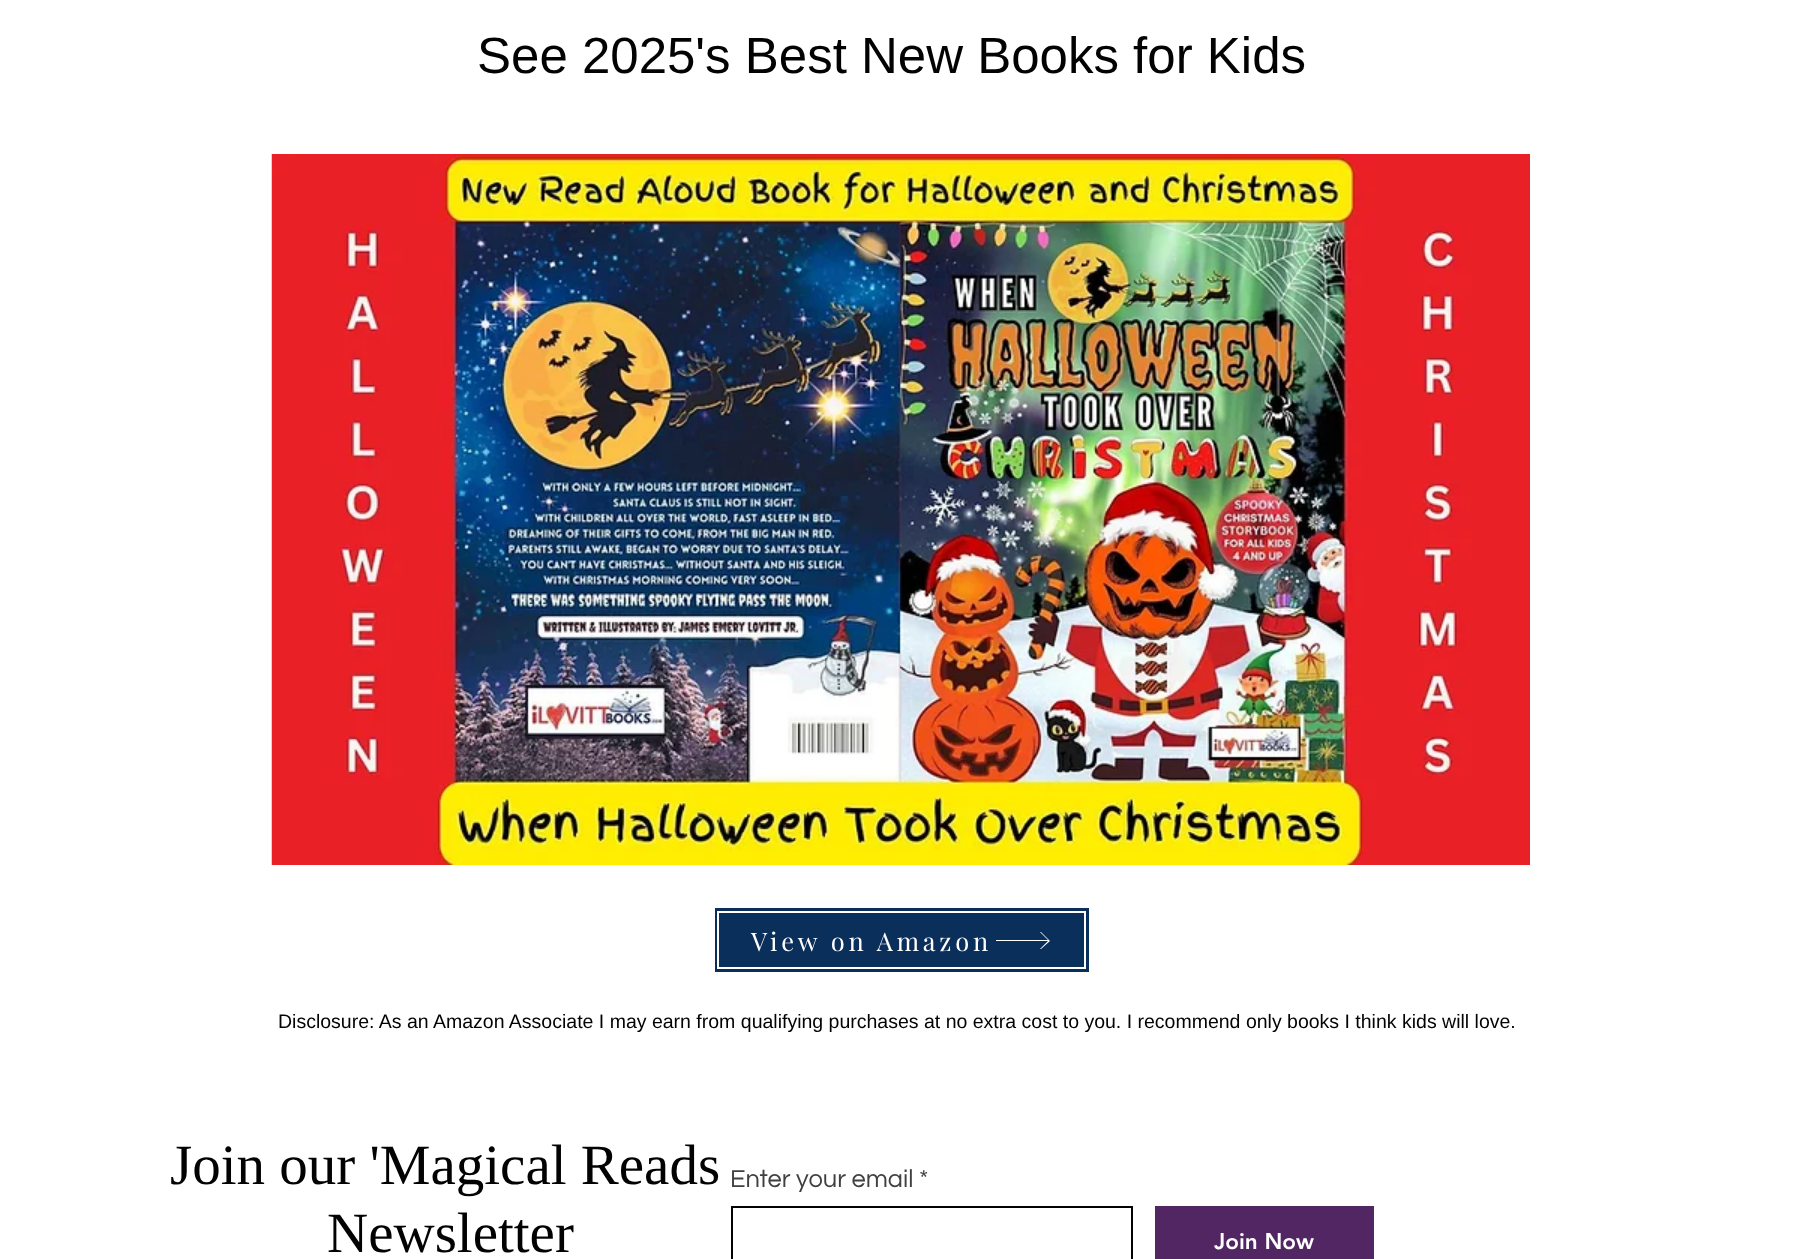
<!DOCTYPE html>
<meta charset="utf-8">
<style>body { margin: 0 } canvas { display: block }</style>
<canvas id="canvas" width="1802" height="1259"></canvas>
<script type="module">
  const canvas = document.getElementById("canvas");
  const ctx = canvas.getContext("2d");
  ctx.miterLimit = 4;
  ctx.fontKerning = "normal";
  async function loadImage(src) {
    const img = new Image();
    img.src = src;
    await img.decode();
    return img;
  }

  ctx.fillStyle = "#ffffff";
  ctx.fillRect(0, 0, 1802, 1259);
  ctx.font = "51px Liberation Sans";
  ctx.fillStyle = "#010201";
  ctx.fillText("See 2025's Best New Books for Kids", 477, 73);
  ctx.drawImage(await loadImage("img1.png"), 271, 154, 1259, 711);
  ctx.fillStyle = "#0b2f5b";
  ctx.fillRect(715, 908, 374, 64);
  ctx.strokeStyle = "#ffffff";
  ctx.lineWidth = 2;
  ctx.strokeRect(718, 912, 367, 56);
  ctx.letterSpacing = "3.75px";
  ctx.font = "25.5px Playfair Display";
  ctx.fillStyle = "#ffffff";
  ctx.fillText("View on Amazon", 751, 951);
  ctx.beginPath();
  ctx.moveTo(1041, 932);
  ctx.lineTo(1040, 932);
  ctx.lineTo(1048, 940);
  ctx.lineTo(996, 940);
  ctx.lineTo(996, 941);
  ctx.lineTo(1048, 941);
  ctx.lineTo(1040, 949);
  ctx.lineTo(1041, 949);
  ctx.lineTo(1050, 941);
  ctx.closePath();
  ctx.fill();
  ctx.letterSpacing = "0px";
  ctx.font = "19.5px Liberation Sans";
  ctx.fillStyle = "#010201";
  ctx.fillText("Disclosure: As an Amazon Associate I may earn from qualifying purchases at no extra cost to you. I recommend only books I think kids will love.", 278, 1028);
  ctx.font = "57px Liberation Serif";
  ctx.fillText("Join our 'Magical Reads", 170, 1184);
  ctx.fillText("Newsletter", 327, 1252);
  ctx.font = "25.5px Questrial";
  ctx.fillStyle = "#404040";
  ctx.fillText("Enter your email *", 730, 1187);
  ctx.strokeStyle = "#010201";
  ctx.strokeRect(732, 1207, 400, 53);
  ctx.fillStyle = "#522662";
  ctx.fillRect(1155, 1206, 219, 53);
  ctx.font = "900 22.5px 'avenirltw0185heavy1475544'";
  ctx.fillStyle = "#ffffff";
  ctx.fillText("Join Now", 1214, 1249);
</script>
